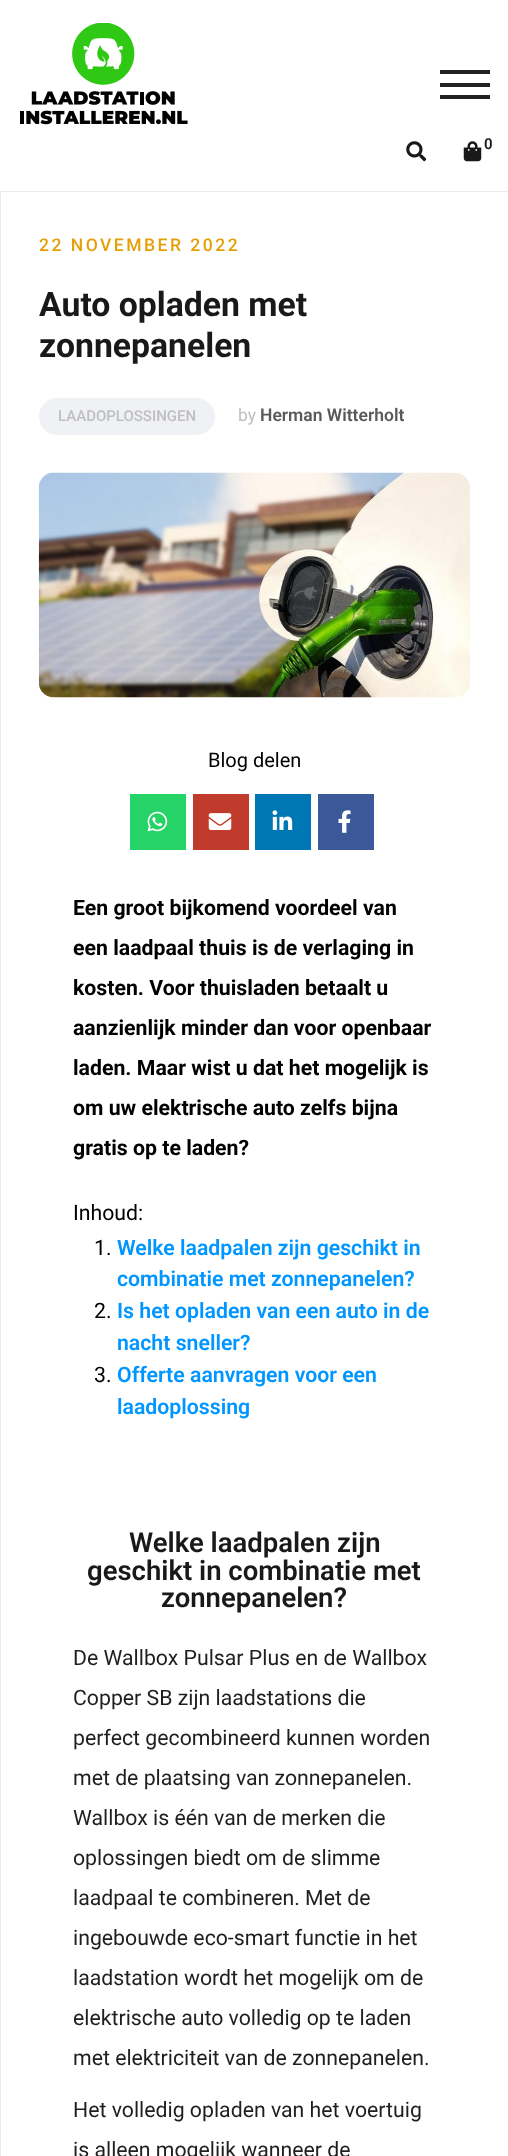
<!DOCTYPE html>
<meta charset="utf-8">
<style>body { margin: 0 } canvas { display: block }</style>
<canvas id="canvas" width="508" height="2156"></canvas>
<script type="module">
  const canvas = document.getElementById("canvas");
  const ctx = canvas.getContext("2d");
  ctx.miterLimit = 4;
  ctx.fontKerning = "normal";
  async function loadImage(src) {
    const img = new Image();
    img.src = src;
    await img.decode();
    return img;
  }

  ctx.fillStyle = "#ffffff";
  ctx.fillRect(0, 0, 508, 2156);
  ctx.drawImage(await loadImage("img1.png"), 20, 23, 168, 102);
  ctx.fillStyle = "#212121";
  ctx.fillRect(440, 83, 50, 4);
  ctx.fillRect(440, 70, 50, 4);
  ctx.fillRect(440, 95, 50, 4);
  ctx.drawImage(await loadImage("img2.png"), 406, 141, 21, 21);
  ctx.drawImage(await loadImage("img3.png"), 463, 141, 19, 21);
  ctx.font = "600 15px Roboto";
  ctx.fillStyle = "#191919";
  ctx.fillText("0", 484, 149);
  ctx.strokeStyle = "#ebebeb";
  ctx.strokeRect(0.5, 191.5, 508, 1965);
  ctx.letterSpacing = "2.5px";
  ctx.font = "500 17.5px Roboto";
  ctx.fillStyle = "#e5a009";
  ctx.fillText("22 NOVEMBER 2022", 39, 251);
  ctx.letterSpacing = "0px";
  ctx.font = "bold 33.75px Roboto";
  ctx.fillStyle = "#191919";
  ctx.fillText("Auto opladen met", 39, 316);
  ctx.fillText("zonnepanelen", 39, 357);
  ctx.fillStyle = "#eff1f4";
  ctx.beginPath();
  ctx.roundRect(39, 398, 176, 37, 18.5);
  ctx.fill();
  ctx.font = "500 15px Roboto";
  ctx.fillStyle = "#bfbfbf";
  ctx.fillText("LAADOPLOSSINGEN", 58, 421);
  ctx.font = "17.5px Roboto";
  ctx.fillText("by", 238, 421);
  ctx.font = "600 17.5px Roboto";
  ctx.fillStyle = "#595959";
  ctx.fillText("Herman Witterholt", 260, 421);
  ctx.drawImage(await loadImage("img4.png"), 38, 472, 432, 226);
  ctx.font = "20px Roboto";
  ctx.fillStyle = "#000000";
  ctx.fillText("Blog delen", 208, 767);
  ctx.fillStyle = "#25d366";
  ctx.fillRect(130, 794, 56, 56);
  ctx.drawImage(await loadImage("img5.png"), 147, 811, 21, 21);
  ctx.fillStyle = "#c13b2c";
  ctx.fillRect(193, 794, 56, 56);
  ctx.drawImage(await loadImage("img6.png"), 208, 813, 24, 17);
  ctx.fillStyle = "#0077b5";
  ctx.fillRect(255, 794, 56, 56);
  ctx.drawImage(await loadImage("img7.png"), 272, 810, 21, 20);
  ctx.fillStyle = "#3b5998";
  ctx.fillRect(318, 794, 56, 56);
  ctx.drawImage(await loadImage("img8.png"), 338, 810, 13, 23);
  ctx.font = "bold 21.25px Roboto";
  ctx.fillStyle = "#000000";
  ctx.fillText("Een groot bijkomend voordeel van", 73, 915);
  ctx.fillText("een laadpaal thuis is de verlaging in", 73, 955);
  ctx.fillText("kosten. Voor thuisladen betaalt u", 73, 995);
  ctx.fillText("aanzienlijk minder dan voor openbaar", 73, 1035);
  ctx.fillText("laden. Maar wist u dat het mogelijk is", 73, 1075);
  ctx.fillText("om uw elektrische auto zelfs bijna", 73, 1115);
  ctx.fillText("gratis op te laden?", 73, 1155);
  ctx.font = "21.25px Roboto";
  ctx.fillText("Inhoud:", 73, 1220);
  ctx.fillText("1.", 94, 1255);
  ctx.font = "600 21.25px Roboto";
  ctx.fillStyle = "#0096ff";
  ctx.fillText("Welke laadpalen zijn geschikt in", 117, 1255);
  ctx.fillText("combinatie met zonnepanelen?", 117, 1286);
  ctx.font = "21.25px Roboto";
  ctx.fillStyle = "#000000";
  ctx.fillText("2.", 94, 1318);
  ctx.font = "600 21.25px Roboto";
  ctx.fillStyle = "#0096ff";
  ctx.fillText("Is het opladen van een auto in de", 117, 1318);
  ctx.fillText("nacht sneller?", 117, 1350);
  ctx.font = "21.25px Roboto";
  ctx.fillStyle = "#000000";
  ctx.fillText("3.", 94, 1382);
  ctx.font = "600 21.25px Roboto";
  ctx.fillStyle = "#0096ff";
  ctx.fillText("Offerte aanvragen voor een", 117, 1382);
  ctx.fillText("laadoplossing", 117, 1414);
  ctx.font = "600 27.5px Roboto";
  ctx.fillStyle = "#191919";
  ctx.fillText("Welke laadpalen zijn", 129, 1552);
  ctx.fillText("geschikt in combinatie met", 87, 1580);
  ctx.fillText("zonnepanelen?", 161, 1607);
  ctx.font = "21.25px Roboto";
  ctx.fillStyle = "#201f1f";
  ctx.fillText("De Wallbox Pulsar Plus en de Wallbox", 73, 1665);
  ctx.fillText("Copper SB zijn laadstations die", 73, 1705);
  ctx.fillText("perfect gecombineerd kunnen worden", 73, 1745);
  ctx.fillText("met de plaatsing van zonnepanelen.", 73, 1785);
  ctx.fillText("Wallbox is één van de merken die", 73, 1825);
  ctx.fillText("oplossingen biedt om de slimme", 73, 1865);
  ctx.fillText("laadpaal te combineren. Met de", 73, 1905);
  ctx.fillText("ingebouwde eco-smart functie in het", 73, 1945);
  ctx.fillText("laadstation wordt het mogelijk om de", 73, 1985);
  ctx.fillText("elektrische auto volledig op te laden", 73, 2025);
  ctx.fillText("met elektriciteit van de zonnepanelen.", 73, 2065);
  ctx.fillText("Het volledig opladen van het voertuig", 73, 2117);
  ctx.fillText("is alleen mogelijk wanneer de", 73, 2157);
</script>
